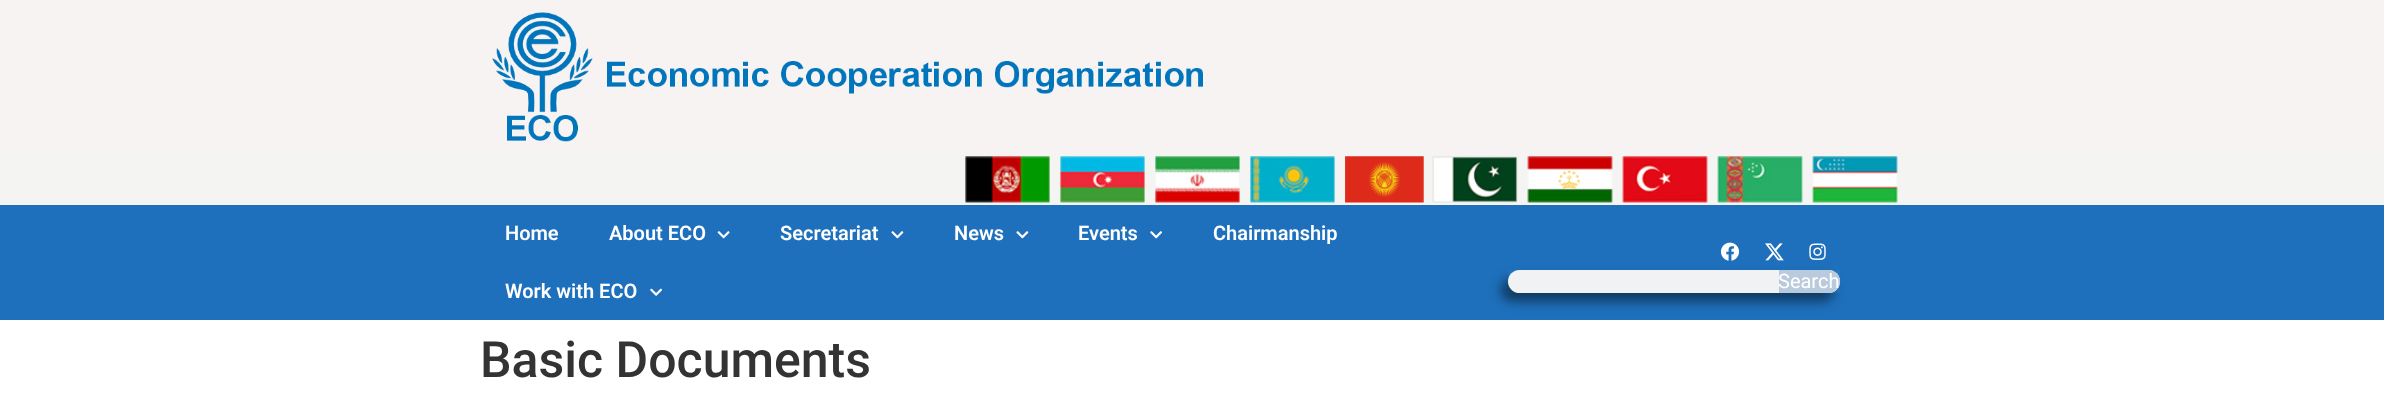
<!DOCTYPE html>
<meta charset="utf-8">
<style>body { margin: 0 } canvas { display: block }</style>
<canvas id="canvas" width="2384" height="410"></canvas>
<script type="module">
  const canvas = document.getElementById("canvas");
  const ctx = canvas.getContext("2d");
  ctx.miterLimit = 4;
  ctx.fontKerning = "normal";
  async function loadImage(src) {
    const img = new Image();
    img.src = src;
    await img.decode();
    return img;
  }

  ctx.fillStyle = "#ffffff";
  ctx.fillRect(0, 0, 2384, 410);
  ctx.fillStyle = "#f7f3f3";
  ctx.fillRect(0, 0, 2384, 154);
  ctx.drawImage(await loadImage("img1.png"), 492, 12, 711, 130);
  ctx.fillStyle = "#f4f4f2";
  ctx.fillRect(0, 154, 2384, 51);
  ctx.drawImage(await loadImage("img2.png"), 965, 156, 85, 47);
  ctx.drawImage(await loadImage("img3.png"), 1060, 156, 85, 47);
  ctx.drawImage(await loadImage("img4.png"), 1155, 156, 85, 47);
  ctx.drawImage(await loadImage("img5.png"), 1250, 156, 85, 47);
  ctx.drawImage(await loadImage("img6.png"), 1345, 156, 79, 47);
  ctx.drawImage(await loadImage("img7.png"), 1432, 156, 86, 47);
  ctx.drawImage(await loadImage("img8.png"), 1527, 156, 86, 47);
  ctx.drawImage(await loadImage("img9.png"), 1622, 156, 86, 47);
  ctx.drawImage(await loadImage("img10.png"), 1717, 156, 86, 47);
  ctx.drawImage(await loadImage("img11.png"), 1812, 156, 86, 47);
  ctx.fillStyle = "#1e70bc";
  ctx.fillRect(0, 205, 2384, 115);
  ctx.font = "600 20px Roboto";
  ctx.fillStyle = "#ffffff";
  ctx.fillText("Home", 505, 240);
  ctx.fillText("About ECO", 609, 240);
  ctx.drawImage(await loadImage("img12.png"), 717, 231, 13, 8);
  ctx.fillText("Secretariat", 780, 240);
  ctx.drawImage(await loadImage("img13.png"), 891, 231, 13, 8);
  ctx.fillText("News", 954, 240);
  ctx.drawImage(await loadImage("img13.png"), 1016, 231, 13, 8);
  ctx.fillText("Events", 1078, 240);
  ctx.drawImage(await loadImage("img14.png"), 1150, 231, 12, 8);
  ctx.fillText("Chairmanship", 1213, 240);
  ctx.fillText("Work with ECO", 505, 298);
  ctx.drawImage(await loadImage("img15.png"), 650, 288, 12, 8);
  ctx.drawImage(await loadImage("img16.png"), 1720, 242, 20, 19);
  ctx.drawImage(await loadImage("img17.png"), 1765, 243, 19, 18);
  ctx.drawImage(await loadImage("img18.png"), 1809, 243, 17, 17);
  ctx.fillStyle = "#2577c0";
  ctx.fillRect(1508, 270, 332, 23);
  ctx.fillStyle = "rgba(0, 0, 0, 0.5)";
  ctx.filter = "blur(6px)";
  ctx.beginPath();
  ctx.roundRect(1501, 279, 333, 22, 11);
  ctx.fill();
  ctx.filter = "none";
  ctx.fillStyle = "#f1f2f3";
  ctx.beginPath();
  ctx.roundRect(1508, 270, 332, 23, 11.5);
  ctx.fill();
  ctx.fillStyle = "#bacadd";
  ctx.beginPath();
  ctx.roundRect(1779, 270, 61, 23, [0, 11.5, 11.5, 0]);
  ctx.fill();
  ctx.font = "20px Roboto";
  ctx.fillStyle = "#ffffff";
  ctx.fillText("Search", 1778, 288);
  ctx.font = "500 50px Roboto";
  ctx.fillStyle = "#333333";
  ctx.fillText("Basic Documents", 480, 377);
</script>
